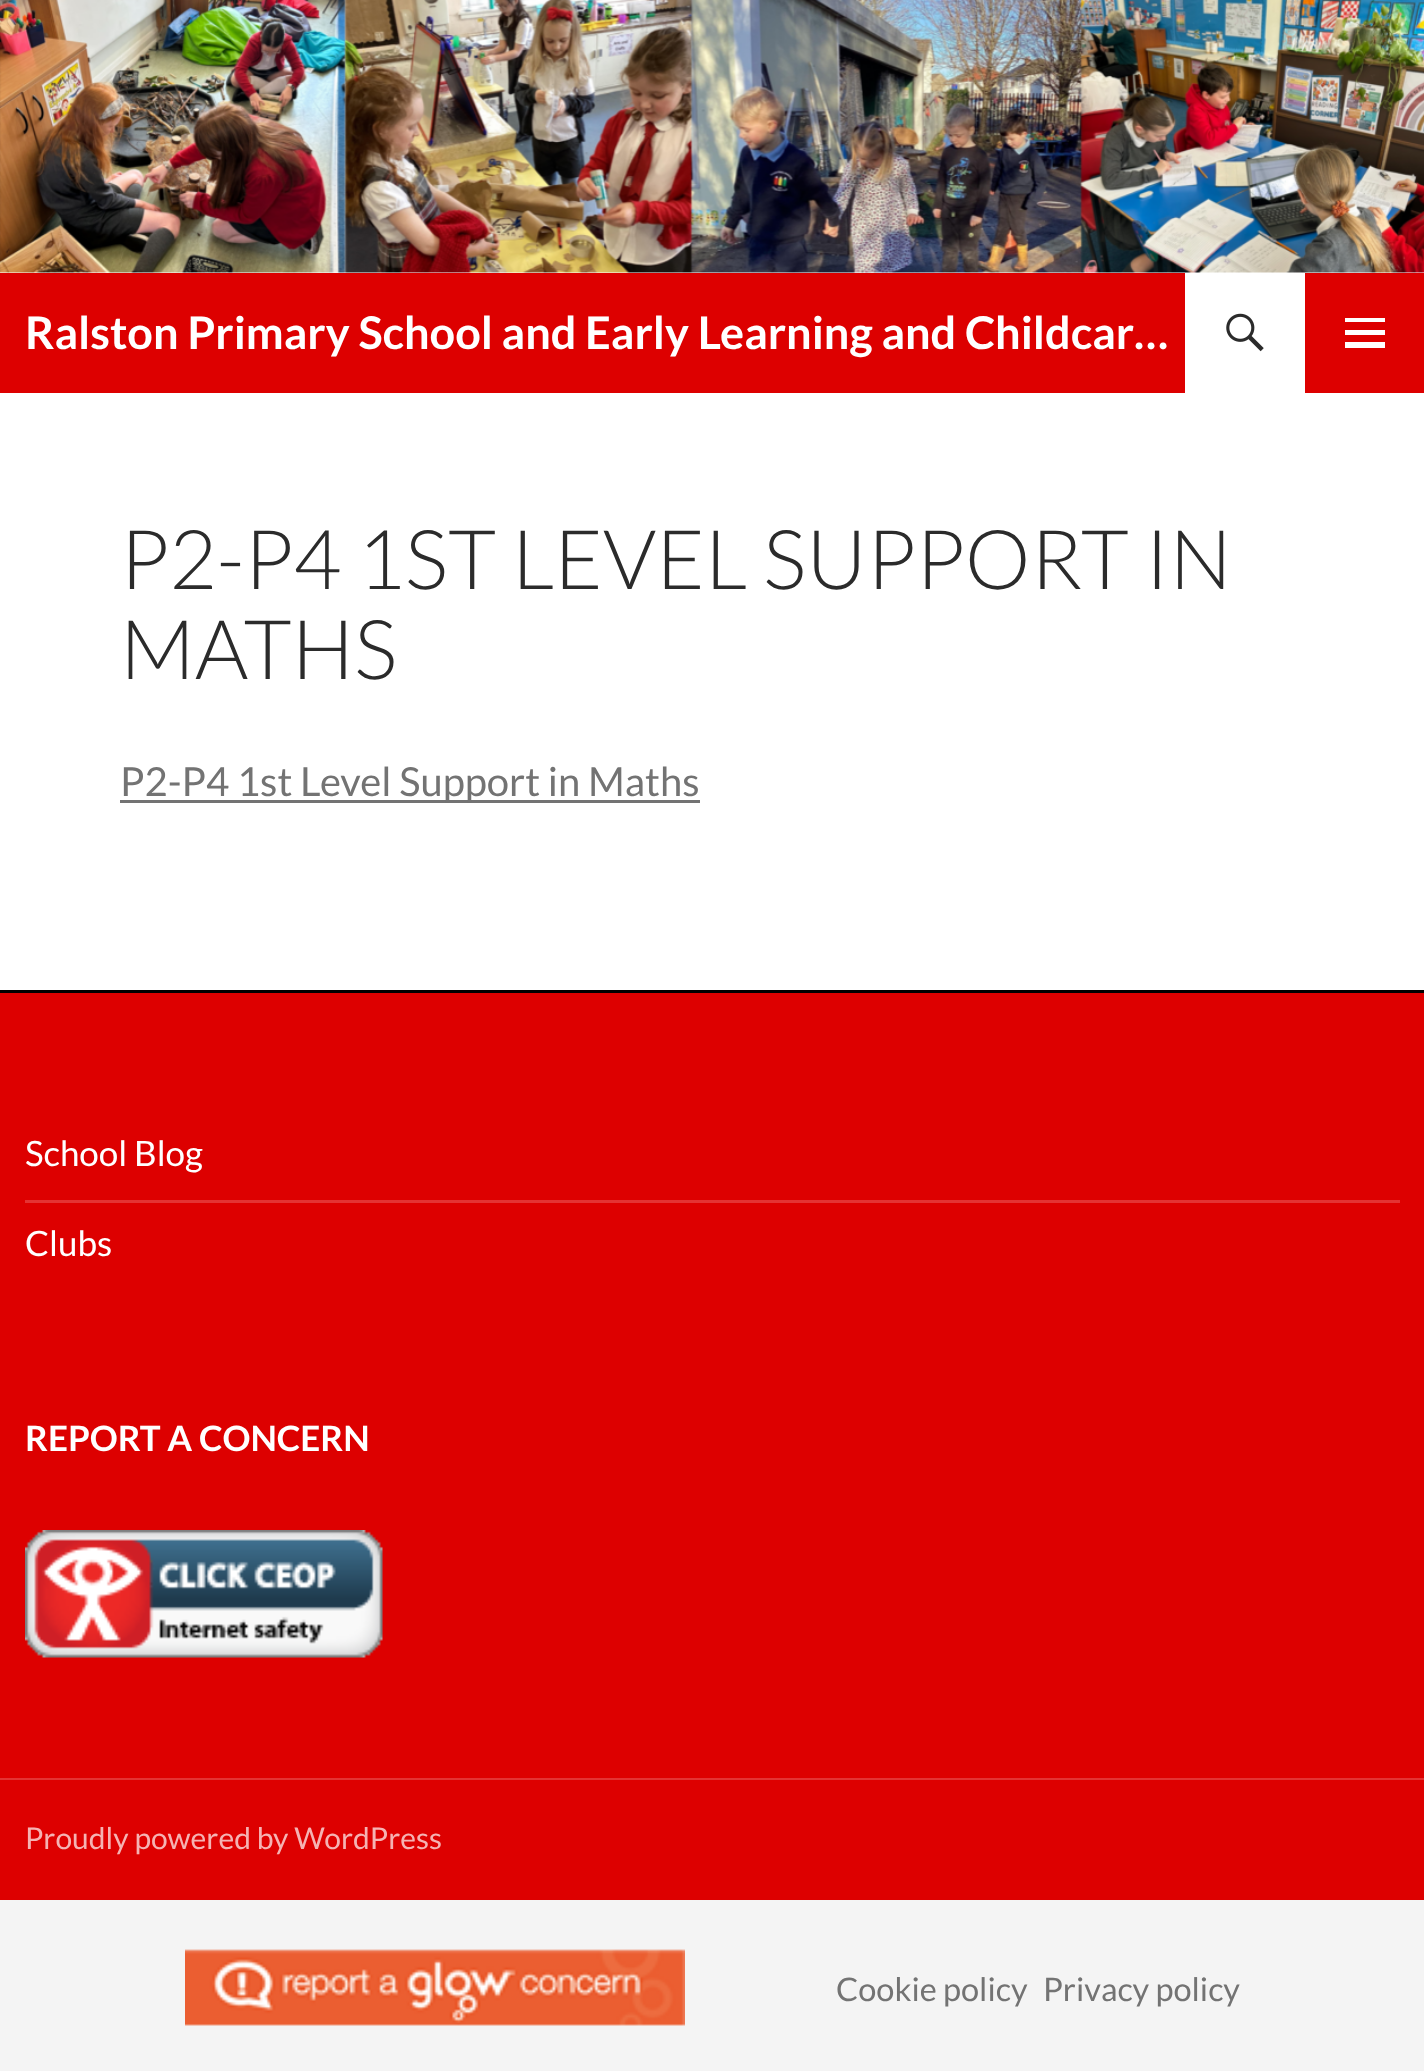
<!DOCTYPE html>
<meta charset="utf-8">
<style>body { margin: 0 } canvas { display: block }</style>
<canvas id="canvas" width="1424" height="2071"></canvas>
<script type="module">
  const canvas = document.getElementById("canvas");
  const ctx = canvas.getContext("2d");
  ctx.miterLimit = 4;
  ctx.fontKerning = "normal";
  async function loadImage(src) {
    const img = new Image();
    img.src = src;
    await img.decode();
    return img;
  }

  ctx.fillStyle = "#f4f4f4";
  ctx.fillRect(0, 0, 1424, 2071);
  ctx.fillStyle = "#ffffff";
  ctx.fillRect(0, 0, 1424, 990);
  ctx.drawImage(await loadImage("img1.png"), 0, 0, 1424, 273);
  ctx.fillStyle = "#dd0000";
  ctx.fillRect(0, 273, 1424, 120);
  ctx.font = "bold 45px Lato";
  ctx.fillStyle = "#ffffff";
  ctx.fillText("Ralston Primary School and Early Learning and Childcar…", 25, 349);
  ctx.fillRect(1185, 273, 120, 120);
  ctx.drawImage(await loadImage("img2.png"), 1226, 313, 38, 39);
  ctx.beginPath();
  ctx.moveTo(1345, 348);
  ctx.lineTo(1345, 342);
  ctx.lineTo(1385, 342);
  ctx.lineTo(1385, 348);
  ctx.closePath();
  ctx.moveTo(1345, 318);
  ctx.lineTo(1385, 318);
  ctx.lineTo(1385, 322);
  ctx.lineTo(1345, 322);
  ctx.closePath();
  ctx.moveTo(1345, 335);
  ctx.lineTo(1345, 330);
  ctx.lineTo(1385, 330);
  ctx.lineTo(1385, 335);
  ctx.closePath();
  ctx.fill();
  ctx.font = "300 82.5px Lato";
  ctx.fillStyle = "#2b2b2b";
  ctx.fillText("P2-P4 1ST LEVEL SUPPORT IN", 120, 589);
  ctx.fillText("MATHS", 120, 679);
  ctx.fillStyle = "#737373";
  ctx.fillRect(120, 800, 580, 3);
  ctx.font = "40px Lato";
  ctx.fillText("P2-P4 1st Level Support in Maths", 120, 796);
  ctx.fillStyle = "#dd0000";
  ctx.fillRect(0, 993, 1424, 785);
  ctx.fillStyle = "#e43333";
  ctx.fillRect(0, 1778, 1424, 2);
  ctx.fillStyle = "#000000";
  ctx.fillRect(0, 990, 1424, 3);
  ctx.font = "35px Lato";
  ctx.fillStyle = "#ffffff";
  ctx.fillText("School Blog", 25, 1166);
  ctx.fillStyle = "#e43333";
  ctx.fillRect(25, 1200, 1375, 3);
  ctx.fillStyle = "#ffffff";
  ctx.fillText("Clubs", 25, 1256);
  ctx.font = "bold 35px Lato";
  ctx.fillText("REPORT A CONCERN", 25, 1451);
  ctx.drawImage(await loadImage("img3.png"), 25, 1530, 358, 128);
  ctx.fillStyle = "#dd0000";
  ctx.fillRect(0, 1780, 1424, 120);
  ctx.font = "30px Lato";
  ctx.fillStyle = "#f5b3b3";
  ctx.fillText("Proudly powered by WordPress", 25, 1849);
  ctx.drawImage(await loadImage("img4.png"), 185, 1949, 500, 77);
  ctx.font = "32.5px Lato";
  ctx.fillStyle = "#737373";
  ctx.fillText("Cookie policy", 836, 2001);
  ctx.fillText("Privacy policy", 1043, 2001);
</script>
